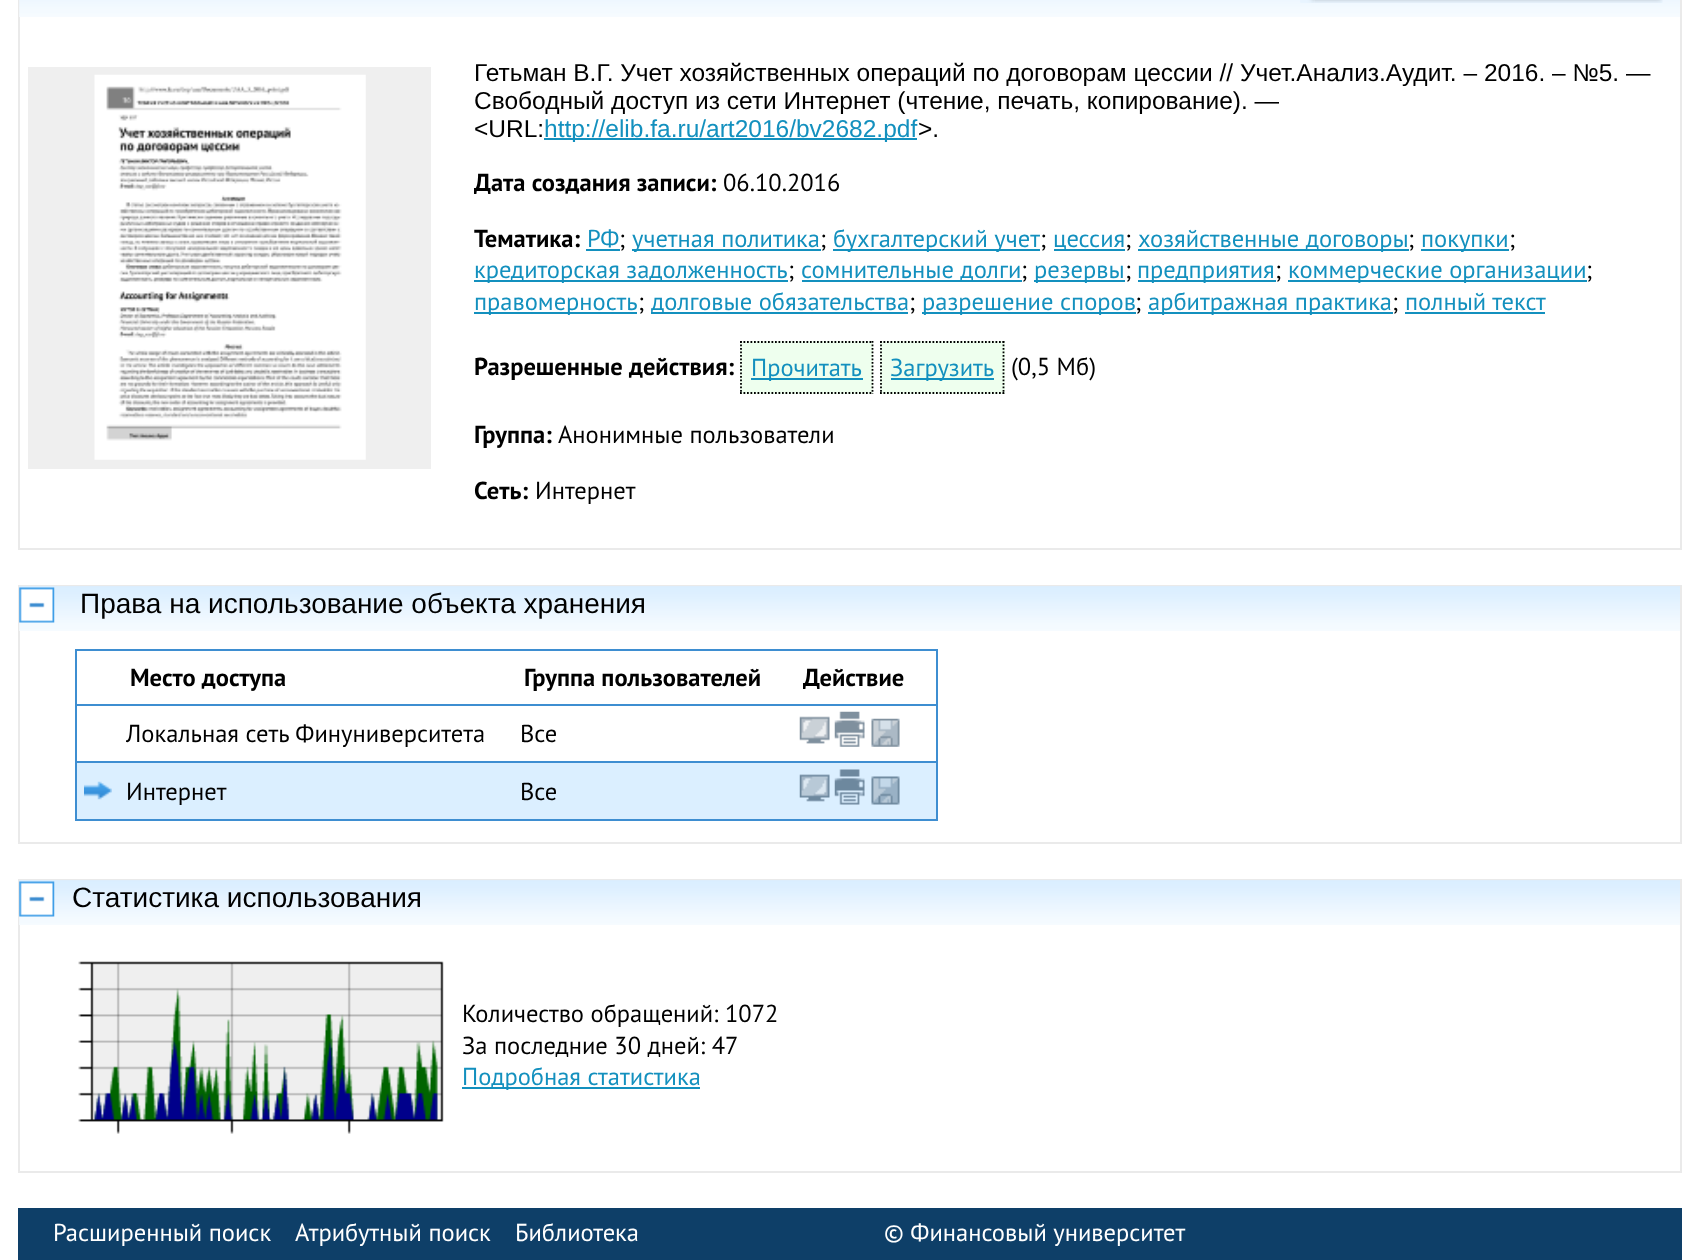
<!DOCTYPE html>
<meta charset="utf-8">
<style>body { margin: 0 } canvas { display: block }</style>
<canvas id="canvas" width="1699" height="1260"></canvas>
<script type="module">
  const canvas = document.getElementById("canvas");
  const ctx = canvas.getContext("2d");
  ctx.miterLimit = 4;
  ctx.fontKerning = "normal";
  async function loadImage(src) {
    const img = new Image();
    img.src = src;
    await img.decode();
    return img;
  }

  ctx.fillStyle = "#ffffff";
  ctx.fillRect(0, 0, 1699, 1260);
  ctx.strokeStyle = "#eaeaea";
  ctx.lineWidth = 2;
  ctx.strokeRect(19, -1, 1662, 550);
  ctx.drawImage(await loadImage("img1.png"), 19, 0, 1661, 17);
  ctx.drawImage(await loadImage("img2.png"), 1300, 0, 15, 3);
  ctx.drawImage(await loadImage("img3.png"), 1314, 0, 349, 3);
  ctx.fillStyle = "#efefef";
  ctx.fillRect(28, 67, 403, 402);
  ctx.drawImage(await loadImage("img4.png"), 94, 74, 272, 386);
  ctx.font = "24.5px Liberation Sans";
  ctx.fillStyle = "#000000";
  ctx.fillText("Гетьман В.Г. Учет хозяйственных операций по договорам цессии // Учет.Анализ.Аудит. – 2016. – №5. —", 474, 81);
  ctx.fillText("Свободный доступ из сети Интернет (чтение, печать, копирование). —", 474, 109);
  ctx.fillText("<URL:", 474, 137);
  ctx.fillStyle = "#1390be";
  ctx.fillRect(544, 138, 373, 2);
  ctx.fillText("http://elib.fa.ru/art2016/bv2682.pdf", 544, 137);
  ctx.fillStyle = "#000000";
  ctx.fillText(">.", 918, 137);
  ctx.font = "bold 24.5px PT Sans";
  ctx.fillText("Дата создания записи:", 474, 191);
  ctx.font = "24.5px PT Sans";
  ctx.fillText("06.10.2016", 723, 191);
  ctx.font = "bold 24.5px PT Sans";
  ctx.fillText("Тематика:", 474, 247);
  ctx.font = "24.5px PT Sans";
  ctx.fillStyle = "#1390be";
  ctx.fillText("РФ", 587, 247);
  ctx.fillStyle = "#000000";
  ctx.fillText(";", 619, 247);
  ctx.fillStyle = "#1390be";
  ctx.fillRect(586, 249, 34, 2);
  ctx.fillRect(632, 249, 189, 2);
  ctx.fillText("учетная политика", 632, 247);
  ctx.fillStyle = "#000000";
  ctx.fillText(";", 820, 247);
  ctx.fillStyle = "#1390be";
  ctx.fillRect(833, 249, 207, 2);
  ctx.fillText("бухгалтерский учет", 833, 247);
  ctx.fillStyle = "#000000";
  ctx.fillText(";", 1040, 247);
  ctx.fillStyle = "#1390be";
  ctx.fillRect(1054, 249, 71, 2);
  ctx.fillText("цессия", 1053, 247);
  ctx.fillStyle = "#000000";
  ctx.fillText(";", 1125, 247);
  ctx.fillStyle = "#1390be";
  ctx.fillRect(1138, 249, 271, 2);
  ctx.fillText("хозяйственные договоры", 1138, 247);
  ctx.fillStyle = "#000000";
  ctx.fillText(";", 1408, 247);
  ctx.fillStyle = "#1390be";
  ctx.fillRect(1421, 249, 88, 2);
  ctx.fillText("покупки", 1421, 247);
  ctx.fillStyle = "#000000";
  ctx.fillText(";", 1509, 247);
  ctx.fillStyle = "#1390be";
  ctx.fillRect(474, 280, 314, 2);
  ctx.fillText("кредиторская задолженность", 474, 278);
  ctx.fillStyle = "#000000";
  ctx.fillText(";", 788, 278);
  ctx.fillStyle = "#1390be";
  ctx.fillRect(802, 280, 220, 2);
  ctx.fillText("сомнительные долги", 801, 278);
  ctx.fillStyle = "#000000";
  ctx.fillText(";", 1021, 278);
  ctx.fillStyle = "#1390be";
  ctx.fillRect(1034, 280, 91, 2);
  ctx.fillText("резервы", 1034, 278);
  ctx.fillStyle = "#000000";
  ctx.fillText(";", 1125, 278);
  ctx.fillStyle = "#1390be";
  ctx.fillRect(1138, 280, 138, 2);
  ctx.fillText("предприятия", 1137, 278);
  ctx.fillStyle = "#000000";
  ctx.fillText(";", 1275, 278);
  ctx.fillStyle = "#1390be";
  ctx.fillRect(1288, 280, 299, 2);
  ctx.fillText("коммерческие организации", 1288, 278);
  ctx.fillStyle = "#000000";
  ctx.fillText(";", 1586, 278);
  ctx.fillStyle = "#1390be";
  ctx.fillRect(474, 312, 163, 2);
  ctx.fillText("правомерность", 474, 310);
  ctx.fillStyle = "#000000";
  ctx.fillText(";", 638, 310);
  ctx.fillStyle = "#1390be";
  ctx.fillRect(651, 312, 257, 2);
  ctx.fillText("долговые обязательства", 651, 310);
  ctx.fillStyle = "#000000";
  ctx.fillText(";", 909, 310);
  ctx.fillStyle = "#1390be";
  ctx.fillRect(922, 312, 214, 2);
  ctx.fillText("разрешение споров", 922, 310);
  ctx.fillStyle = "#000000";
  ctx.fillText(";", 1135, 310);
  ctx.fillStyle = "#1390be";
  ctx.fillRect(1148, 312, 245, 2);
  ctx.fillText("арбитражная практика", 1148, 310);
  ctx.fillStyle = "#000000";
  ctx.fillText(";", 1392, 310);
  ctx.fillStyle = "#1390be";
  ctx.fillText("полный текст", 1405, 310);
  ctx.fillRect(1405, 312, 140, 2);
  ctx.font = "bold 24.5px PT Sans";
  ctx.fillStyle = "#000000";
  ctx.fillText("Разрешенные действия:", 474, 375);
  ctx.fillStyle = "#eeffee";
  ctx.fillRect(740, 341, 133, 53);
  ctx.beginPath();
  ctx.moveTo(740, 342);
  ctx.lineTo(873, 342);
  ctx.strokeStyle = "#000000";
  ctx.lineWidth = 1.8;
  ctx.setLineDash([1.75, 1.75]);
  ctx.stroke();
  ctx.beginPath();
  ctx.moveTo(872.5, 341);
  ctx.lineTo(872.5, 394);
  ctx.stroke();
  ctx.beginPath();
  ctx.moveTo(740, 393);
  ctx.lineTo(873, 393);
  ctx.stroke();
  ctx.beginPath();
  ctx.moveTo(741, 341);
  ctx.lineTo(741, 394);
  ctx.stroke();
  ctx.fillStyle = "#1390be";
  ctx.fillRect(751, 378, 112, 2);
  ctx.font = "24.5px PT Sans";
  ctx.fillText("Прочитать", 751, 376);
  ctx.fillStyle = "#eeffee";
  ctx.fillRect(880, 341, 125, 53);
  ctx.beginPath();
  ctx.moveTo(880, 342);
  ctx.lineTo(1004.5, 342);
  ctx.stroke();
  ctx.beginPath();
  ctx.moveTo(1003.5, 341);
  ctx.lineTo(1003.5, 394);
  ctx.stroke();
  ctx.beginPath();
  ctx.moveTo(880, 393);
  ctx.lineTo(1004.5, 393);
  ctx.stroke();
  ctx.beginPath();
  ctx.moveTo(881, 341);
  ctx.lineTo(881, 394);
  ctx.stroke();
  ctx.fillStyle = "#1390be";
  ctx.fillRect(891, 378, 103, 2);
  ctx.fillText("Загрузить", 890, 376);
  ctx.fillStyle = "#000000";
  ctx.fillText("(0,5 Мб)", 1011, 375);
  ctx.font = "bold 24.5px PT Sans";
  ctx.fillText("Группа:", 474, 443);
  ctx.font = "24.5px PT Sans";
  ctx.fillText("Анонимные пользователи", 558, 443);
  ctx.font = "bold 24.5px PT Sans";
  ctx.fillText("Сеть:", 474, 499);
  ctx.font = "24.5px PT Sans";
  ctx.fillText("Интернет", 535, 499);
  ctx.strokeStyle = "#eaeaea";
  ctx.lineWidth = 2;
  ctx.setLineDash([]);
  ctx.strokeRect(19, 586, 1662, 257);
  ctx.drawImage(await loadImage("img5.png"), 19, 586, 1661, 45);
  ctx.drawImage(await loadImage("img6.png"), 19, 587, 36, 36);
  ctx.font = "28px Liberation Sans";
  ctx.fillText("Права на использование объекта хранения", 80, 613);
  ctx.fillStyle = "#3e8ed1";
  ctx.fillRect(75, 649, 863, 2);
  ctx.fillRect(936, 649, 2, 172);
  ctx.fillRect(75, 819, 863, 2);
  ctx.fillRect(75, 649, 2, 172);
  ctx.font = "bold 24.5px PT Sans";
  ctx.fillStyle = "#000000";
  ctx.fillText("Место доступа", 130, 686);
  ctx.fillText("Группа пользователей", 524, 686);
  ctx.fillText("Действие", 803, 686);
  ctx.fillStyle = "#3e8ed1";
  ctx.fillRect(75, 704, 863, 2);
  ctx.font = "24.5px PT Sans";
  ctx.fillStyle = "#000000";
  ctx.fillText("Локальная сеть Финуниверситета", 126, 742);
  ctx.fillText("Все", 520, 742);
  ctx.drawImage(await loadImage("img7.png"), 799, 716, 31, 28);
  ctx.drawImage(await loadImage("img8.png"), 834, 711, 31, 36);
  ctx.drawImage(await loadImage("img9.png"), 871, 718, 29, 29);
  ctx.fillStyle = "#dbefff";
  ctx.fillRect(77, 763, 859, 56);
  ctx.fillStyle = "#3e8ed1";
  ctx.fillRect(75, 761, 863, 2);
  ctx.drawImage(await loadImage("img10.png"), 84, 781, 28, 19);
  ctx.fillStyle = "#000000";
  ctx.fillText("Интернет", 126, 800);
  ctx.fillText("Все", 520, 800);
  ctx.drawImage(await loadImage("img11.png"), 799, 774, 31, 28);
  ctx.drawImage(await loadImage("img12.png"), 834, 769, 31, 36);
  ctx.drawImage(await loadImage("img13.png"), 871, 776, 29, 29);
  ctx.strokeRect(19, 880, 1662, 292);
  ctx.drawImage(await loadImage("img5.png"), 19, 880, 1661, 45);
  ctx.drawImage(await loadImage("img6.png"), 19, 881, 36, 36);
  ctx.font = "28px Liberation Sans";
  ctx.fillText("Статистика использования", 72, 907);
  ctx.drawImage(await loadImage("img14.png"), 78, 961, 366, 173);
  ctx.font = "24.5px PT Sans";
  ctx.fillText("Количество обращений: 1072", 462, 1022);
  ctx.fillText("За последние 30 дней: 47", 462, 1054);
  ctx.fillStyle = "#1390be";
  ctx.fillRect(462, 1087, 238, 2);
  ctx.fillText("Подробная статистика", 462, 1085);
  ctx.fillStyle = "#0e3f68";
  ctx.fillRect(18, 1208, 1664, 52);
  ctx.fillStyle = "#ffffff";
  ctx.fillText("Расширенный поиск", 53, 1241);
  ctx.fillText("Атрибутный поиск", 295, 1241);
  ctx.fillText("Библиотека", 515, 1241);
  ctx.fillText("© Финансовый университет", 884, 1241);
</script>
